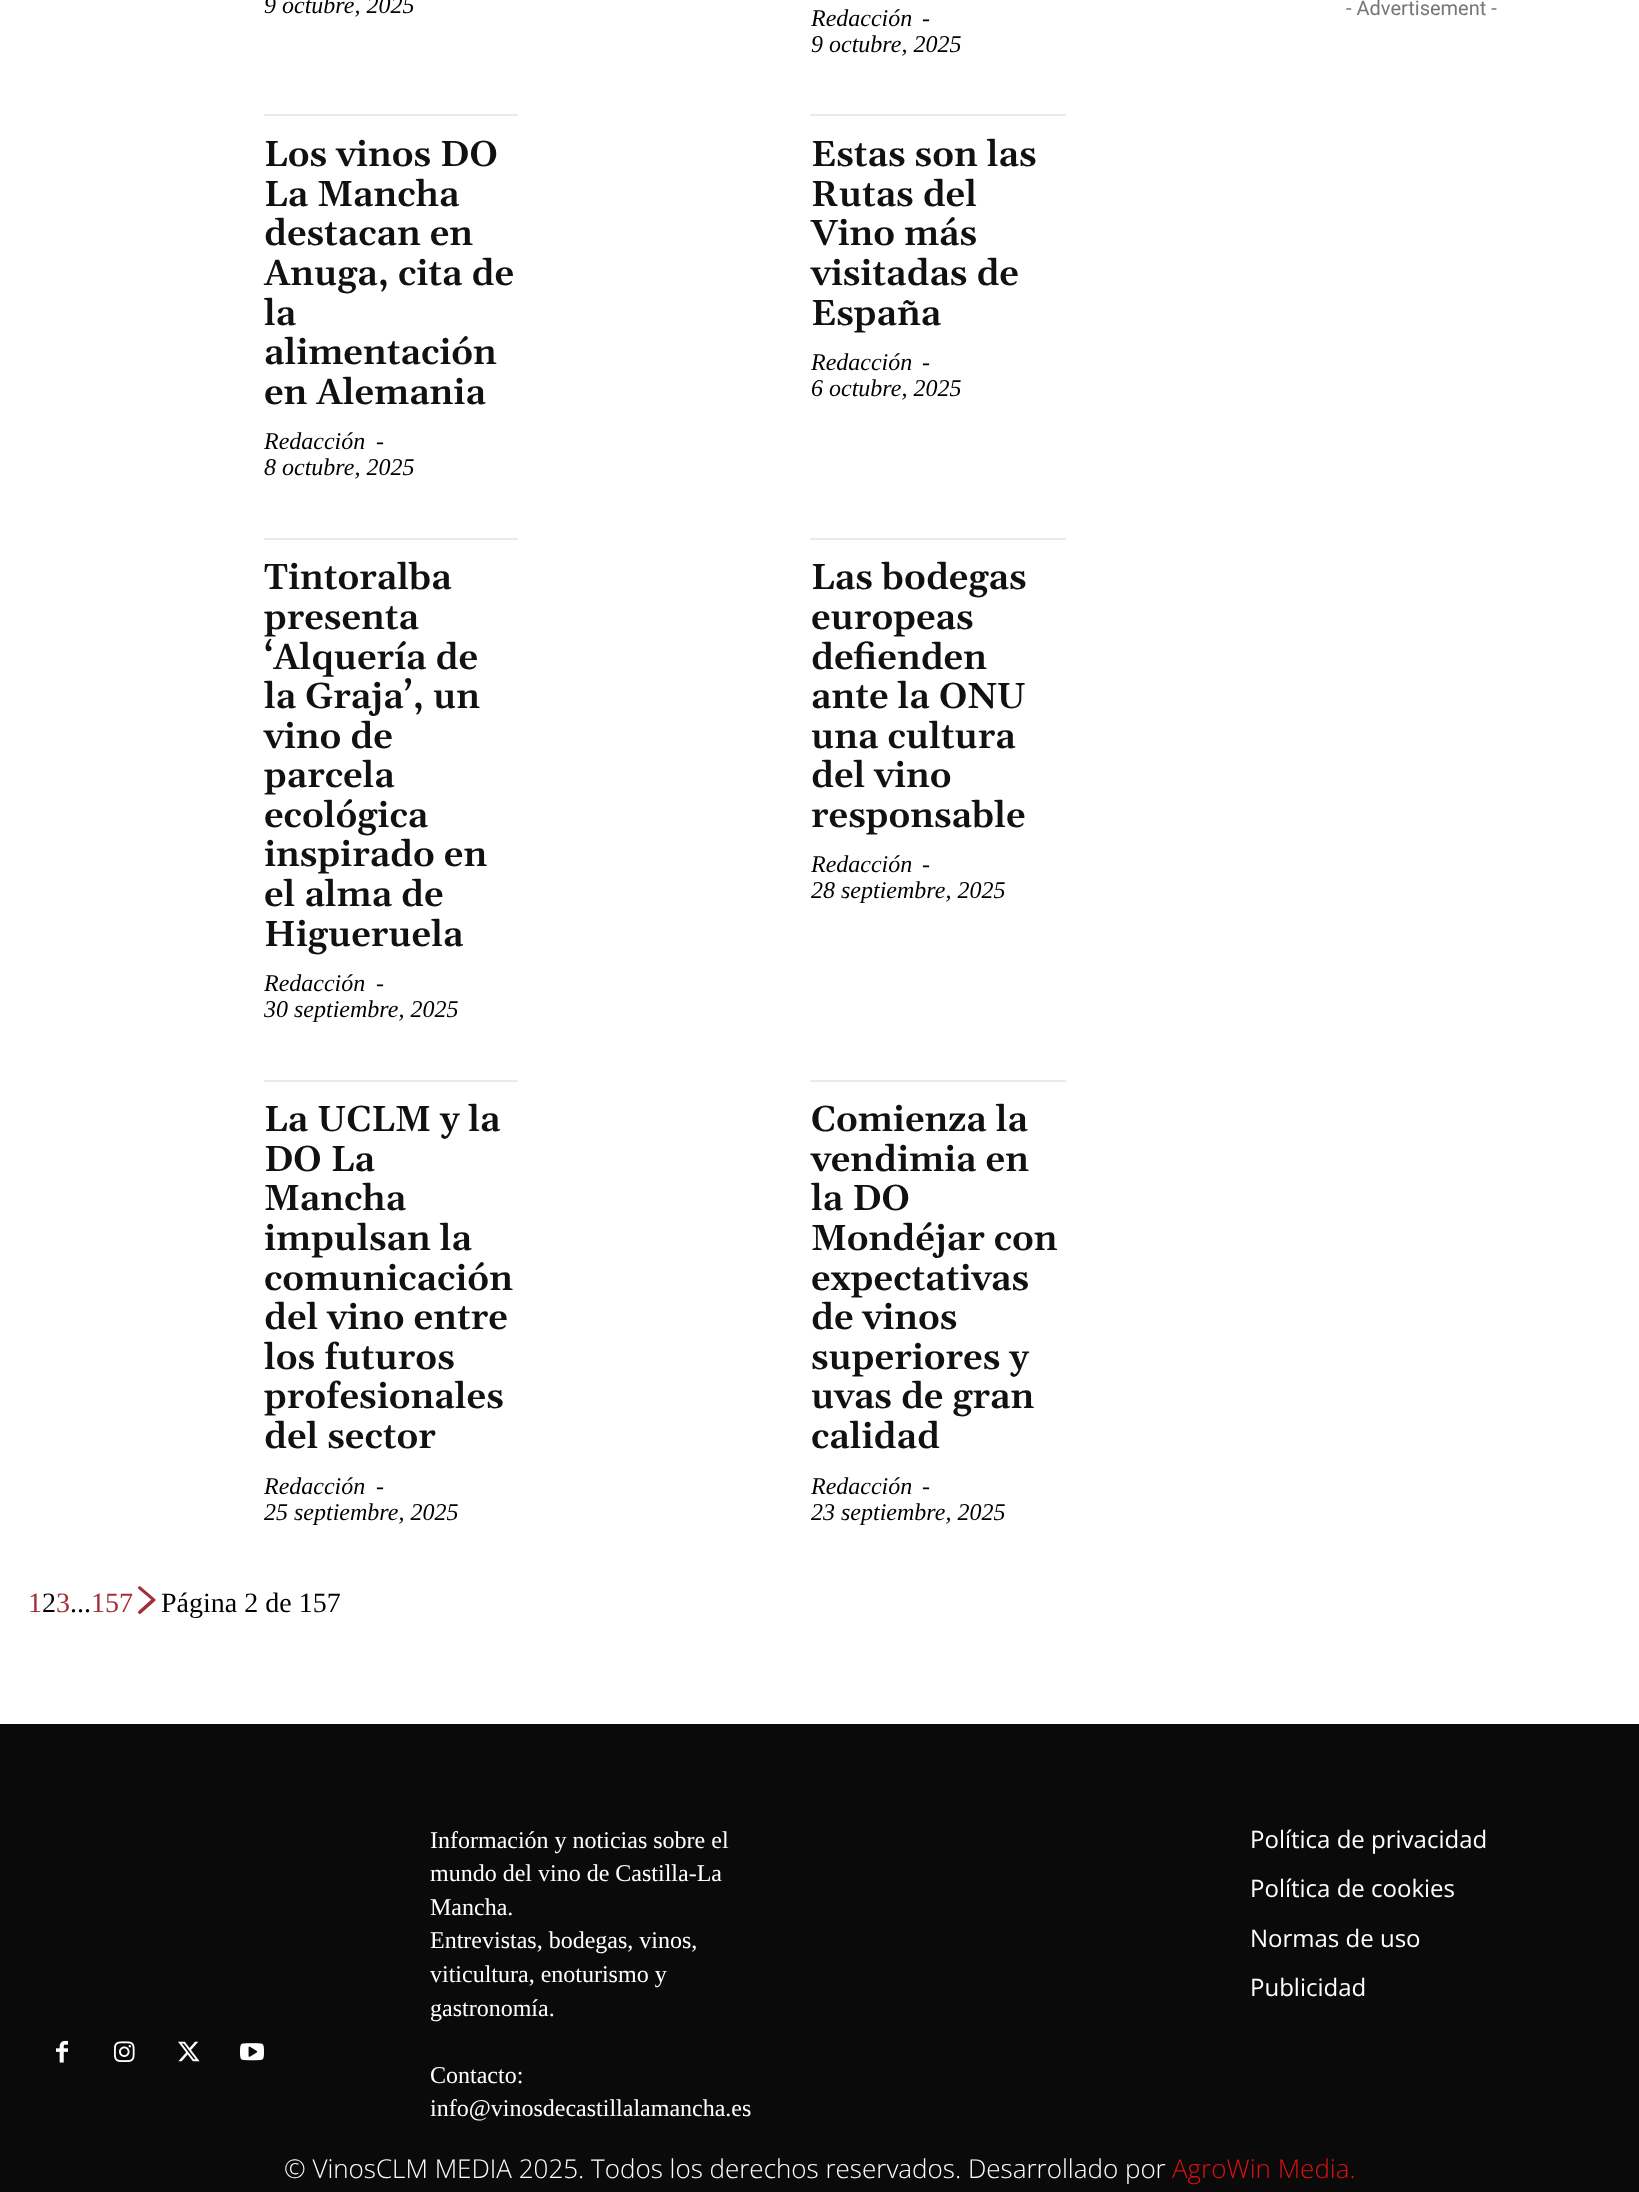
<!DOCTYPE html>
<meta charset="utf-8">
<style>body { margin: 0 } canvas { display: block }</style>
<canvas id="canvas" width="1639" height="2192"></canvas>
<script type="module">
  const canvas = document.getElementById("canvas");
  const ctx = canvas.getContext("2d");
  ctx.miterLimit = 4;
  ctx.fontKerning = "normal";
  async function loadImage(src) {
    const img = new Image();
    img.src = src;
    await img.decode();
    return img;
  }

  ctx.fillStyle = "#ffffff";
  ctx.fillRect(0, 0, 1639, 2192);
  ctx.font = "italic 24px Liberation Serif";
  ctx.fillStyle = "#000000";
  ctx.fillText("9 octubre, 2025", 264, 13);
  ctx.fillText("Redacción", 811, 26);
  ctx.fillText("-", 922, 26);
  ctx.fillText("9 octubre, 2025", 811, 52);
  ctx.fillStyle = "#eaeaea";
  ctx.fillRect(264, 114, 254, 2);
  ctx.font = "600 36px Gelasio";
  ctx.fillStyle = "#111111";
  ctx.fillText("Los vinos DO", 264, 166);
  ctx.fillText("La Mancha", 264, 206);
  ctx.fillText("destacan en", 264, 245);
  ctx.fillText("Anuga, cita de", 264, 285);
  ctx.fillText("la", 264, 325);
  ctx.fillText("alimentación", 264, 364);
  ctx.fillText("en Alemania", 264, 404);
  ctx.font = "italic 24px Liberation Serif";
  ctx.fillStyle = "#000000";
  ctx.fillText("Redacción", 264, 449);
  ctx.fillText("-", 376, 449);
  ctx.fillText("8 octubre, 2025", 264, 475);
  ctx.fillStyle = "#eaeaea";
  ctx.fillRect(810, 114, 256, 2);
  ctx.font = "600 36px Gelasio";
  ctx.fillStyle = "#111111";
  ctx.fillText("Estas son las", 811, 166);
  ctx.fillText("Rutas del", 811, 206);
  ctx.fillText("Vino más", 811, 245);
  ctx.fillText("visitadas de", 811, 285);
  ctx.fillText("España", 811, 325);
  ctx.font = "italic 24px Liberation Serif";
  ctx.fillStyle = "#000000";
  ctx.fillText("Redacción", 811, 370);
  ctx.fillText("-", 922, 370);
  ctx.fillText("6 octubre, 2025", 811, 396);
  ctx.fillStyle = "#eaeaea";
  ctx.fillRect(264, 538, 254, 2);
  ctx.font = "600 36px Gelasio";
  ctx.fillStyle = "#111111";
  ctx.fillText("Tintoralba", 264, 589);
  ctx.fillText("presenta", 264, 629);
  ctx.fillText("‘Alquería de", 264, 669);
  ctx.fillText("la Graja’, un", 264, 708);
  ctx.fillText("vino de", 264, 748);
  ctx.fillText("parcela", 264, 787);
  ctx.fillText("ecológica", 264, 827);
  ctx.fillText("inspirado en", 264, 866);
  ctx.fillText("el alma de", 264, 906);
  ctx.fillText("Higueruela", 264, 946);
  ctx.font = "italic 24px Liberation Serif";
  ctx.fillStyle = "#000000";
  ctx.fillText("Redacción", 264, 991);
  ctx.fillText("-", 376, 991);
  ctx.fillText("30 septiembre, 2025", 264, 1017);
  ctx.fillStyle = "#eaeaea";
  ctx.fillRect(810, 538, 256, 2);
  ctx.font = "600 36px Gelasio";
  ctx.fillStyle = "#111111";
  ctx.fillText("Las bodegas", 811, 589);
  ctx.fillText("europeas", 811, 629);
  ctx.fillText("defienden", 811, 669);
  ctx.fillText("ante la ONU", 811, 708);
  ctx.fillText("una cultura", 811, 748);
  ctx.fillText("del vino", 811, 787);
  ctx.fillText("responsable", 811, 827);
  ctx.font = "italic 24px Liberation Serif";
  ctx.fillStyle = "#000000";
  ctx.fillText("Redacción", 811, 872);
  ctx.fillText("-", 922, 872);
  ctx.fillText("28 septiembre, 2025", 811, 898);
  ctx.fillStyle = "#eaeaea";
  ctx.fillRect(264, 1080, 254, 2);
  ctx.font = "600 36px Gelasio";
  ctx.fillStyle = "#111111";
  ctx.fillText("La UCLM y la", 264, 1131);
  ctx.fillText("DO La", 264, 1171);
  ctx.fillText("Mancha", 264, 1210);
  ctx.fillText("impulsan la", 264, 1250);
  ctx.fillText("comunicación", 264, 1290);
  ctx.fillText("del vino entre", 264, 1329);
  ctx.fillText("los futuros", 264, 1369);
  ctx.fillText("profesionales", 264, 1408);
  ctx.fillText("del sector", 264, 1448);
  ctx.font = "italic 24px Liberation Serif";
  ctx.fillStyle = "#000000";
  ctx.fillText("Redacción", 264, 1494);
  ctx.fillText("-", 376, 1494);
  ctx.fillText("25 septiembre, 2025", 264, 1520);
  ctx.fillStyle = "#eaeaea";
  ctx.fillRect(810, 1080, 256, 2);
  ctx.font = "600 36px Gelasio";
  ctx.fillStyle = "#111111";
  ctx.fillText("Comienza la", 811, 1131);
  ctx.fillText("vendimia en", 811, 1171);
  ctx.fillText("la DO", 811, 1210);
  ctx.fillText("Mondéjar con", 811, 1250);
  ctx.fillText("expectativas", 811, 1290);
  ctx.fillText("de vinos", 811, 1329);
  ctx.fillText("superiores y", 811, 1369);
  ctx.fillText("uvas de gran", 811, 1408);
  ctx.fillText("calidad", 811, 1448);
  ctx.font = "italic 24px Liberation Serif";
  ctx.fillStyle = "#000000";
  ctx.fillText("Redacción", 811, 1494);
  ctx.fillText("-", 922, 1494);
  ctx.fillText("23 septiembre, 2025", 811, 1520);
  ctx.font = "28px Liberation Serif";
  ctx.fillStyle = "#a12e38";
  ctx.fillText("1", 28, 1612);
  ctx.fillStyle = "#000000";
  ctx.fillText("2", 42, 1612);
  ctx.fillStyle = "#a12e38";
  ctx.fillText("3", 56, 1612);
  ctx.fillStyle = "#000000";
  ctx.fillText("...", 70, 1612);
  ctx.fillStyle = "#a12e38";
  ctx.fillText("157", 91, 1612);
  ctx.drawImage(await loadImage("img1.png"), 138, 1586, 18, 28);
  ctx.fillStyle = "#000000";
  ctx.fillText("Página 2 de 157", 161, 1612);
  ctx.font = "20px Roboto";
  ctx.fillStyle = "#767676";
  ctx.fillText("- Advertisement -", 1346, 15);
  ctx.fillStyle = "#0a0a0a";
  ctx.fillRect(0, 1724, 1639, 468);
  ctx.drawImage(await loadImage("img2.png"), 56, 2040, 12, 23);
  ctx.drawImage(await loadImage("img3.png"), 114, 2041, 21, 21);
  ctx.drawImage(await loadImage("img4.png"), 178, 2041, 22, 21);
  ctx.drawImage(await loadImage("img5.png"), 240, 2043, 24, 18);
  ctx.font = "24px Liberation Serif";
  ctx.fillStyle = "#ffffff";
  ctx.fillText("Información y noticias sobre el", 430, 1848);
  ctx.fillText("mundo del vino de Castilla-La", 430, 1881);
  ctx.fillText("Mancha.", 430, 1915);
  ctx.fillText("Entrevistas, bodegas, vinos,", 430, 1948);
  ctx.fillText("viticultura, enoturismo y", 430, 1982);
  ctx.fillText("gastronomía.", 430, 2016);
  ctx.fillText("Contacto:", 430, 2083);
  ctx.fillText("info@vinosdecastillalamancha.es", 430, 2116);
  ctx.font = "24px Open Sans";
  ctx.fillText("Política de privacidad", 1250, 1848);
  ctx.fillText("Política de cookies", 1250, 1897);
  ctx.fillText("Normas de uso", 1250, 1947);
  ctx.fillText("Publicidad", 1250, 1996);
  ctx.font = "300 26px Open Sans";
  ctx.fillText("© VinosCLM MEDIA 2025. Todos los derechos reservados. Desarrollado por", 284, 2178);
  ctx.fillStyle = "#dd1111";
  ctx.fillText("AgroWin Media.", 1172, 2178);
</script>
